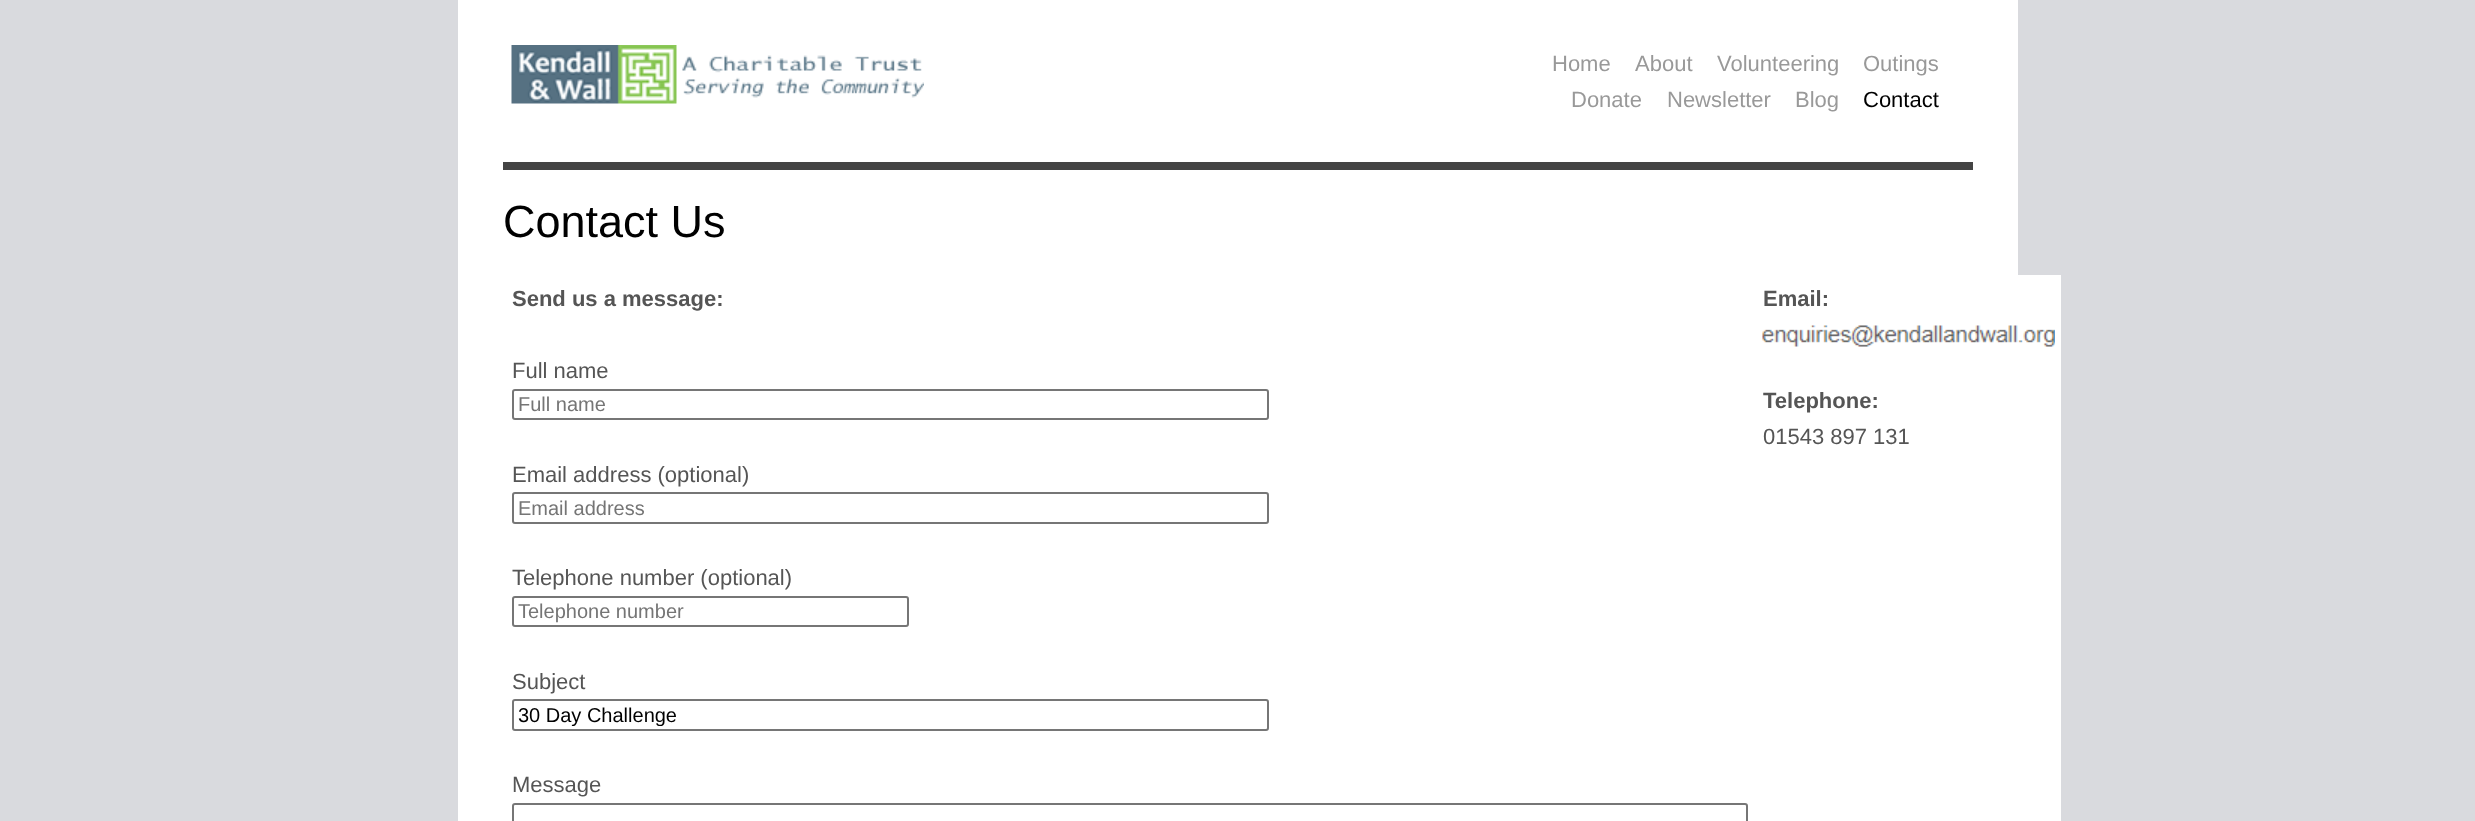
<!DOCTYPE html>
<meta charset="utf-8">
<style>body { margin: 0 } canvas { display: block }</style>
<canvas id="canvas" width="2475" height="821"></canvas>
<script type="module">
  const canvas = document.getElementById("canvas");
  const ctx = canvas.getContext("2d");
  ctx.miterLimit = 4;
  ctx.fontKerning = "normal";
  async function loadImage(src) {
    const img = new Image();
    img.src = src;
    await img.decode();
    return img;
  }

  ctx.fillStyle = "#d9dade";
  ctx.fillRect(0, 0, 2475, 821);
  ctx.fillStyle = "#ffffff";
  ctx.fillRect(458, 0, 1560, 821);
  ctx.drawImage(await loadImage("img1.png"), 511, 45, 413, 59);
  ctx.font = "22px Liberation Sans";
  ctx.fillStyle = "#999999";
  ctx.fillText("Home", 1552, 71);
  ctx.fillText("About", 1635, 71);
  ctx.fillText("Volunteering", 1717, 71);
  ctx.fillText("Outings", 1863, 71);
  ctx.fillText("Donate", 1571, 107);
  ctx.fillText("Newsletter", 1667, 107);
  ctx.fillText("Blog", 1795, 107);
  ctx.fillStyle = "#000000";
  ctx.fillText("Contact", 1863, 107);
  ctx.fillStyle = "#444444";
  ctx.fillRect(503, 162, 1470, 8);
  ctx.font = "45px Liberation Sans";
  ctx.fillStyle = "#000000";
  ctx.fillText("Contact Us", 503, 237);
  ctx.font = "bold 22px Liberation Sans";
  ctx.fillStyle = "#555555";
  ctx.fillText("Send us a message:", 512, 306);
  ctx.font = "22px Liberation Sans";
  ctx.fillText("Full name", 512, 378);
  ctx.beginPath();
  ctx.roundRect(513, 390, 755, 29, 2);
  ctx.strokeStyle = "#767676";
  ctx.lineWidth = 2;
  ctx.stroke();
  ctx.font = "20px Liberation Sans";
  ctx.fillStyle = "#757575";
  ctx.fillText("Full name", 518, 411);
  ctx.font = "22px Liberation Sans";
  ctx.fillStyle = "#555555";
  ctx.fillText("Email address (optional)", 512, 482);
  ctx.beginPath();
  ctx.roundRect(513, 493, 755, 30, 2);
  ctx.stroke();
  ctx.font = "20px Liberation Sans";
  ctx.fillStyle = "#757575";
  ctx.fillText("Email address", 518, 515);
  ctx.font = "22px Liberation Sans";
  ctx.fillStyle = "#555555";
  ctx.fillText("Telephone number (optional)", 512, 585);
  ctx.beginPath();
  ctx.roundRect(513, 597, 395, 29, 2);
  ctx.stroke();
  ctx.font = "20px Liberation Sans";
  ctx.fillStyle = "#757575";
  ctx.fillText("Telephone number", 518, 618);
  ctx.font = "22px Liberation Sans";
  ctx.fillStyle = "#555555";
  ctx.fillText("Subject", 512, 689);
  ctx.beginPath();
  ctx.roundRect(513, 700, 755, 30, 2);
  ctx.stroke();
  ctx.save();
  ctx.beginPath();
  ctx.rect(518, 704, 745, 22);
  ctx.clip();
  ctx.font = "20px Liberation Sans";
  ctx.fillStyle = "#000000";
  ctx.fillText("30 Day Challenge", 518, 722);
  ctx.restore();
  ctx.fillText("Message", 512, 792);
  ctx.beginPath();
  ctx.roundRect(513, 804, 1234, 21, 2);
  ctx.stroke();
  ctx.fillStyle = "#ffffff";
  ctx.fillRect(2018, 275, 43, 546);
  ctx.font = "bold 22px Liberation Sans";
  ctx.fillStyle = "#555555";
  ctx.fillText("Email:", 1763, 306);
  ctx.drawImage(await loadImage("img2.png"), 1762, 325, 293, 22);
  ctx.fillText("Telephone:", 1763, 408);
  ctx.font = "22px Liberation Sans";
  ctx.fillText("01543 897 131", 1763, 444);
</script>
